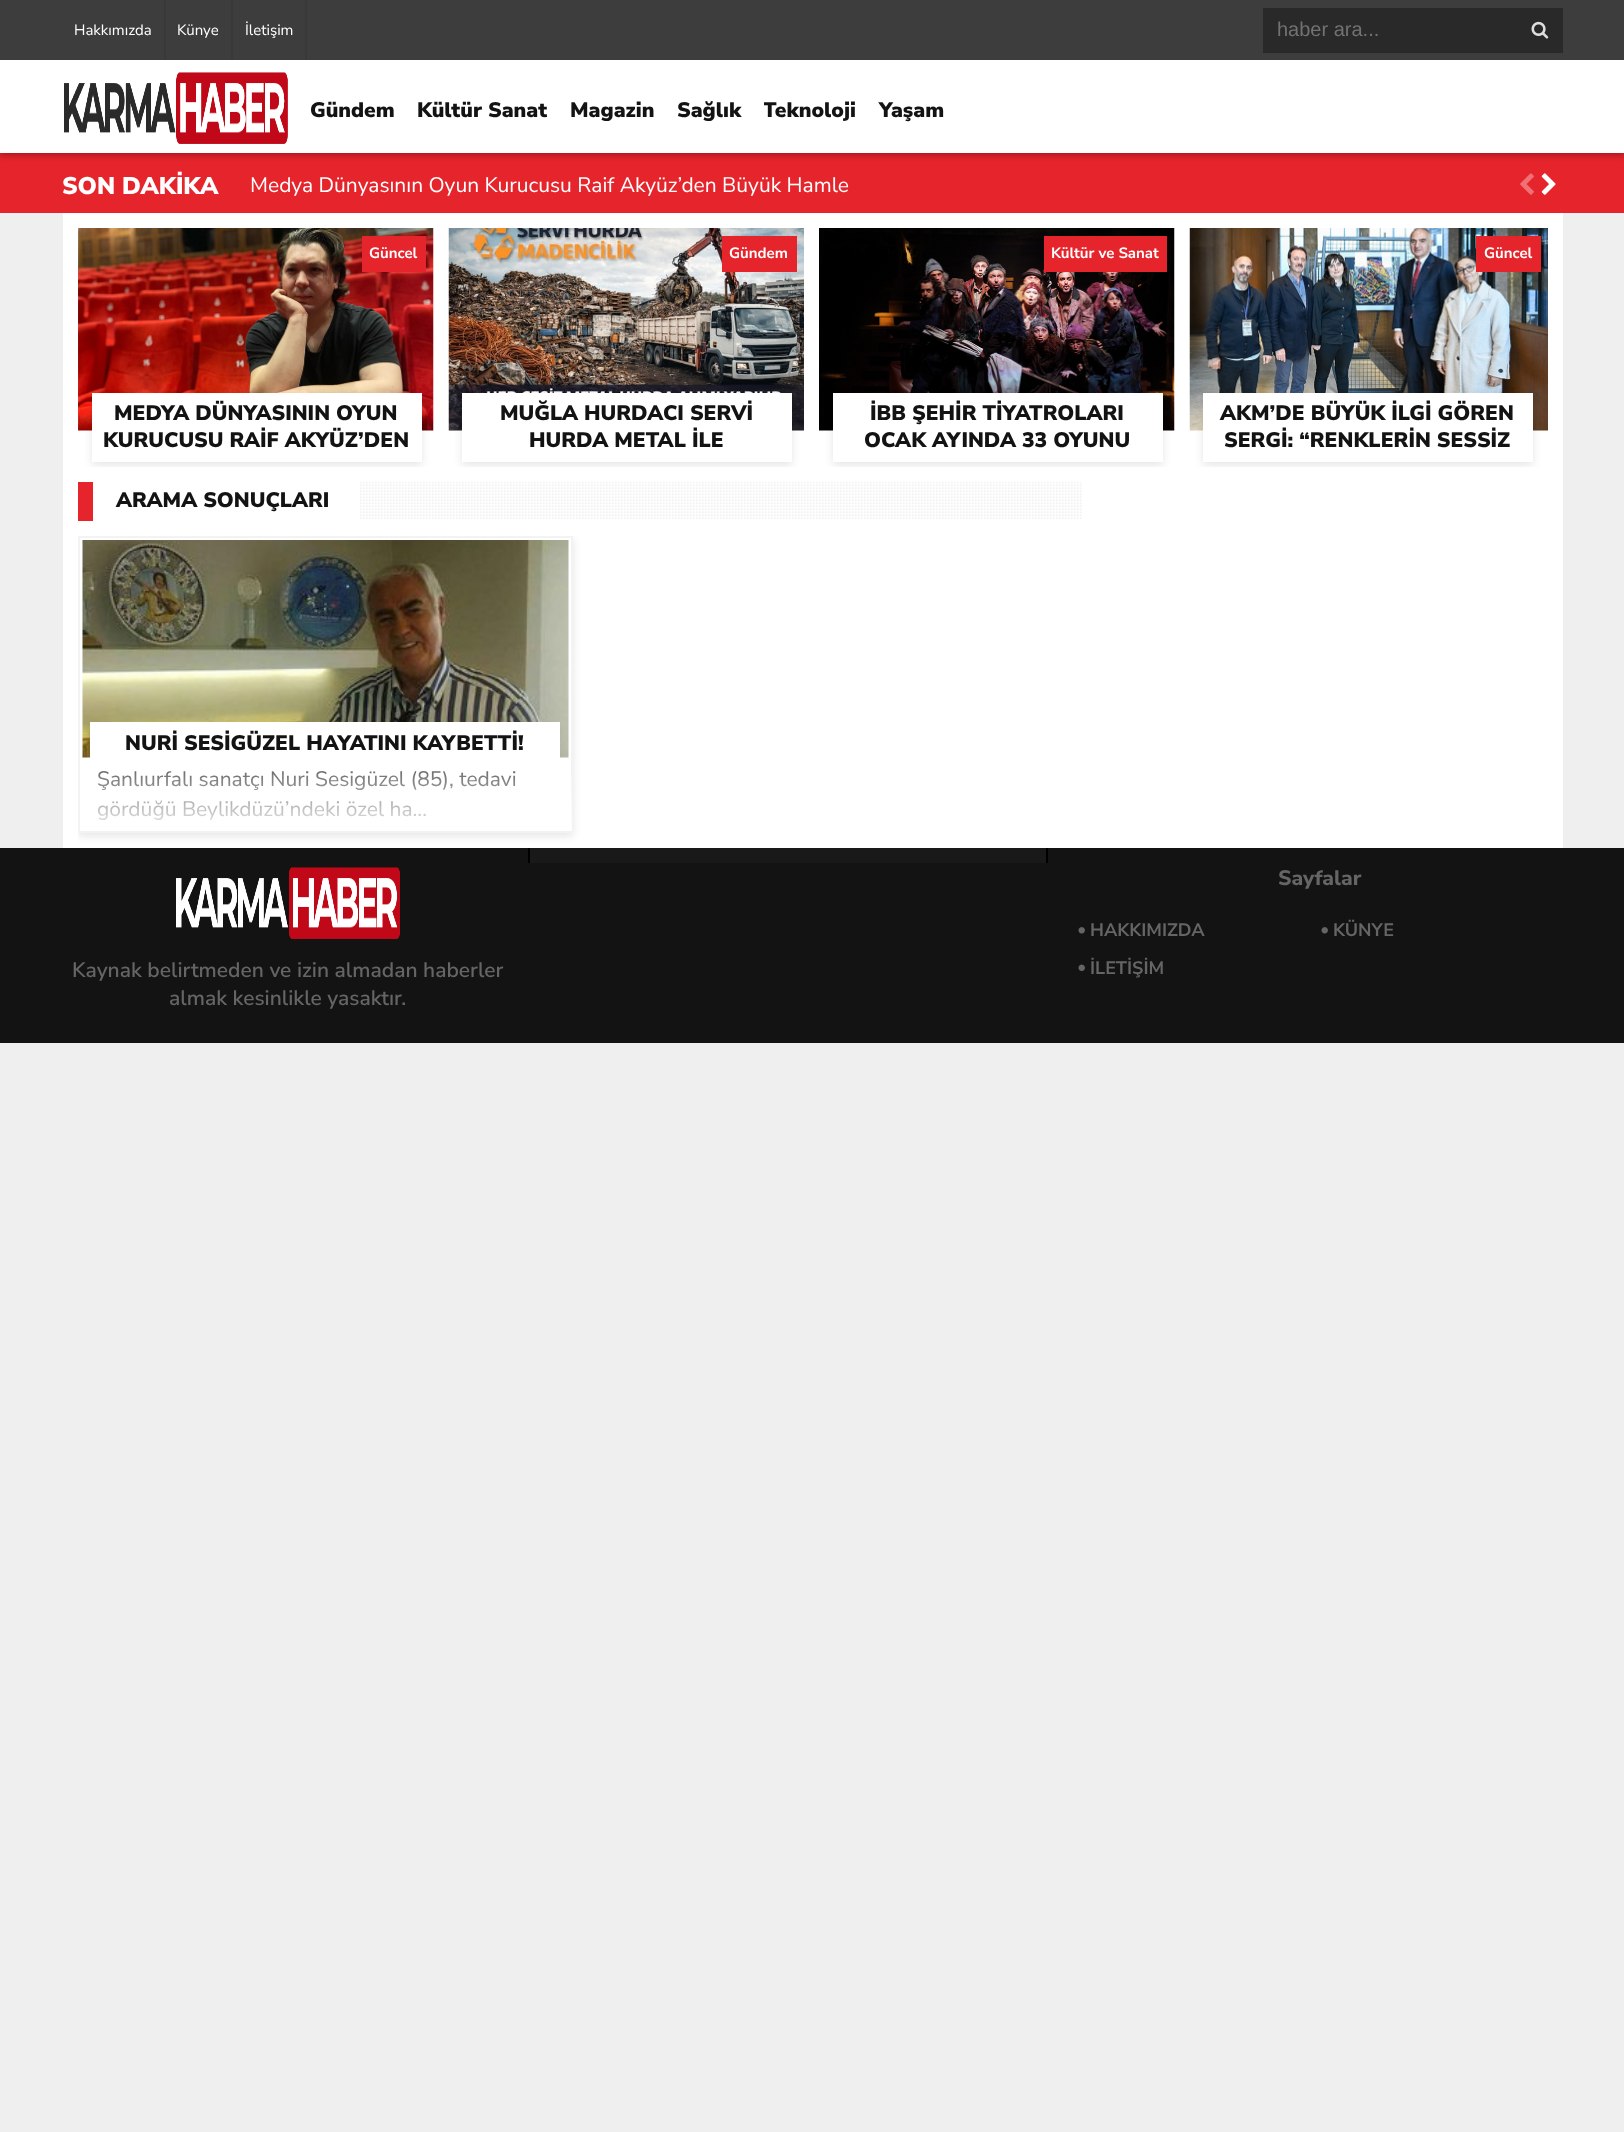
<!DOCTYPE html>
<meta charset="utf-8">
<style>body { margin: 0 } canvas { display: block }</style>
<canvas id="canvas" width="1624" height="2132"></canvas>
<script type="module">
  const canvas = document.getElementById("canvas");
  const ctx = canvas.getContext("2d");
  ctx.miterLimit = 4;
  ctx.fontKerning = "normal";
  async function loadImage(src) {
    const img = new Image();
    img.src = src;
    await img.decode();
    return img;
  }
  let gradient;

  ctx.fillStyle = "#efefef";
  ctx.fillRect(0, 0, 1624, 2132);
  ctx.fillStyle = "#e6242b";
  ctx.fillRect(0, 153, 1624, 60);
  ctx.fillStyle = "rgba(0, 0, 0, 0.3)";
  ctx.filter = "blur(3px)";
  ctx.beginPath();
  ctx.rect(0, 62, 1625, 93);
  ctx.fill();
  ctx.filter = "none";
  ctx.fillStyle = "#3d3d3d";
  ctx.fillRect(0, 0, 1624, 60);
  ctx.fillStyle = "#393939";
  ctx.fillRect(164, 0, 2, 60);
  ctx.font = "15px Nunito Sans";
  ctx.fillStyle = "#ffffff";
  ctx.fillText("Hakkımızda", 74, 35);
  ctx.fillStyle = "#393939";
  ctx.fillRect(231, 0, 2, 60);
  ctx.fillStyle = "#ffffff";
  ctx.fillText("Künye", 177, 35);
  ctx.fillStyle = "#393939";
  ctx.fillRect(305, 0, 2, 60);
  ctx.fillStyle = "#ffffff";
  ctx.fillText("İletişim", 245, 35);
  ctx.fillStyle = "#292929";
  ctx.fillRect(1263, 8, 300, 45);
  ctx.font = "20px Liberation Sans";
  ctx.fillStyle = "#727272";
  ctx.fillText("haber ara...", 1277, 36);
  ctx.drawImage(await loadImage("img1.png"), 1531, 21, 18, 18);
  ctx.fillStyle = "#ffffff";
  ctx.fillRect(0, 60, 1624, 93);
  ctx.drawImage(await loadImage("img2.png"), 64, 72, 224, 72);
  ctx.save();
  ctx.beginPath();
  ctx.rect(311, 68, 84, 78);
  ctx.clip();
  ctx.font = "900 21px Nunito Sans";
  ctx.fillStyle = "#131313";
  ctx.fillText("Gündem", 310, 117);
  ctx.restore();
  ctx.font = "900 21px Nunito Sans";
  ctx.fillStyle = "#131313";
  ctx.fillText("Kültür Sanat", 417, 117);
  ctx.fillText("Magazin", 570, 117);
  ctx.fillText("Sağlık", 677, 117);
  ctx.save();
  ctx.beginPath();
  ctx.rect(764, 68, 93, 78);
  ctx.clip();
  ctx.fillText("Teknoloji", 763, 117);
  ctx.restore();
  ctx.fillText("Yaşam", 879, 117);
  ctx.font = "900 24px Nunito Sans";
  ctx.fillStyle = "#ffffff";
  ctx.fillText("SON DAKİKA", 62, 194);
  ctx.font = "21px Nunito Sans";
  ctx.fillText("Medya Dünyasının Oyun Kurucusu Raif Akyüz’den Büyük Hamle", 250, 192);
  ctx.drawImage(await loadImage("img3.png"), 1520, 173, 14, 22);
  ctx.drawImage(await loadImage("img4.png"), 1541, 173, 15, 22);
  ctx.fillRect(63, 213, 1500, 635);
  ctx.drawImage(await loadImage("img5.png"), 78, 228, 356, 203);
  ctx.fillStyle = "#e6242b";
  ctx.fillRect(362, 236, 64, 36);
  ctx.font = "bold 15px Nunito Sans";
  ctx.fillStyle = "#ffffff";
  ctx.fillText("Güncel", 369, 258);
  ctx.save();
  ctx.beginPath();
  ctx.rect(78, 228, 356, 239);
  ctx.clip();
  ctx.fillStyle = "rgba(0, 0, 0, 0.1)";
  ctx.filter = "blur(4px)";
  ctx.beginPath();
  ctx.rect(92, 396, 330, 69);
  ctx.fill();
  ctx.filter = "none";
  ctx.restore();
  ctx.fillRect(92, 393, 330, 69);
  ctx.font = "900 21px Nunito Sans";
  ctx.fillStyle = "#131313";
  ctx.fillText("MEDYA DÜNYASININ OYUN", 114, 420);
  ctx.fillText("KURUCUSU RAİF AKYÜZ’DEN", 103, 447);
  ctx.drawImage(await loadImage("img6.png"), 448, 228, 356, 203);
  ctx.fillStyle = "#e6242b";
  ctx.fillRect(722, 236, 75, 36);
  ctx.font = "bold 15px Nunito Sans";
  ctx.fillStyle = "#ffffff";
  ctx.fillText("Gündem", 729, 258);
  ctx.save();
  ctx.beginPath();
  ctx.rect(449, 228, 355, 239);
  ctx.clip();
  ctx.fillStyle = "rgba(0, 0, 0, 0.1)";
  ctx.filter = "blur(4px)";
  ctx.beginPath();
  ctx.rect(462, 396, 330, 69);
  ctx.fill();
  ctx.filter = "none";
  ctx.restore();
  ctx.fillRect(462, 393, 330, 69);
  ctx.font = "900 21px Nunito Sans";
  ctx.fillStyle = "#131313";
  ctx.fillText("MUĞLA HURDACI SERVİ", 500, 420);
  ctx.fillText("HURDA METAL İLE", 529, 447);
  ctx.drawImage(await loadImage("img7.png"), 819, 228, 356, 203);
  ctx.fillStyle = "#e6242b";
  ctx.fillRect(1044, 236, 123, 36);
  ctx.font = "bold 15px Nunito Sans";
  ctx.fillStyle = "#ffffff";
  ctx.fillText("Kültür ve Sanat", 1051, 258);
  ctx.save();
  ctx.beginPath();
  ctx.rect(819, 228, 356, 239);
  ctx.clip();
  ctx.fillStyle = "rgba(0, 0, 0, 0.1)";
  ctx.filter = "blur(4px)";
  ctx.beginPath();
  ctx.rect(833, 396, 330, 69);
  ctx.fill();
  ctx.filter = "none";
  ctx.restore();
  ctx.fillRect(833, 393, 330, 69);
  ctx.font = "900 21px Nunito Sans";
  ctx.fillStyle = "#131313";
  ctx.fillText("İBB ŞEHİR TİYATROLARI", 870, 420);
  ctx.fillText("OCAK AYINDA 33 OYUNU", 864, 447);
  ctx.drawImage(await loadImage("img8.png"), 1189, 228, 359, 203);
  ctx.fillStyle = "#e6242b";
  ctx.fillRect(1476, 236, 65, 36);
  ctx.font = "bold 15px Nunito Sans";
  ctx.fillStyle = "#ffffff";
  ctx.fillText("Güncel", 1484, 258);
  ctx.save();
  ctx.beginPath();
  ctx.rect(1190, 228, 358, 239);
  ctx.clip();
  ctx.fillStyle = "rgba(0, 0, 0, 0.1)";
  ctx.filter = "blur(4px)";
  ctx.beginPath();
  ctx.rect(1203, 396, 330, 69);
  ctx.fill();
  ctx.filter = "none";
  ctx.restore();
  ctx.fillRect(1203, 393, 330, 69);
  ctx.font = "900 21px Nunito Sans";
  ctx.fillStyle = "#131313";
  ctx.fillText("AKM’DE BÜYÜK İLGİ GÖREN", 1220, 420);
  ctx.fillText("SERGİ: “RENKLERİN SESSİZ", 1224, 447);
  ctx.fillStyle = "#e6242b";
  ctx.fillRect(78, 482, 15, 39);
  ctx.drawImage(await loadImage("img9.png"), 360, 482, 722, 37);
  ctx.fillStyle = "#131313";
  ctx.fillText("ARAMA SONUÇLARI", 116, 507);
  ctx.save();
  ctx.beginPath();
  ctx.rect(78, 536, 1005, 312);
  ctx.clip();
  ctx.fillStyle = "rgba(0, 0, 0, 0.1)";
  ctx.filter = "blur(4px)";
  ctx.beginPath();
  ctx.rect(78, 539, 495, 297);
  ctx.fill();
  ctx.filter = "none";
  ctx.restore();
  ctx.fillStyle = "#ffffff";
  ctx.beginPath();
  ctx.rect(79, 537, 493, 295);
  ctx.fill();
  ctx.strokeStyle = "#f3f3f3";
  ctx.lineWidth = 2;
  ctx.stroke();
  ctx.drawImage(await loadImage("img10.png"), 82, 540, 487, 218);
  ctx.fillRect(90, 722, 470, 36);
  ctx.fillStyle = "#131313";
  ctx.fillText("NURİ SESİGÜZEL HAYATINI KAYBETTİ!", 125, 750);
  ctx.font = "21px Nunito Sans";
  ctx.fillStyle = "#727272";
  ctx.fillText("Şanlıurfalı sanatçı Nuri Sesigüzel (85), tedavi", 97, 786);
  ctx.fillText("gördüğü Beylikdüzü’ndeki özel ha...", 97, 816);
  gradient = ctx.createLinearGradient(326, 773, 326, 831);
  gradient.addColorStop(0, "rgba(255, 255, 255, 0)");
  gradient.addColorStop(1, "rgba(255, 255, 255, 0.9)");
  ctx.fillStyle = gradient;
  ctx.fillRect(97, 774, 475, 57);
  ctx.fillStyle = "#131313";
  ctx.fillRect(0, 848, 1624, 195);
  ctx.fillStyle = "#191919";
  ctx.fillRect(530, 848, 516, 15);
  ctx.fillStyle = "#000000";
  ctx.fillRect(1046, 848, 2, 15);
  ctx.fillRect(528, 848, 2, 15);
  ctx.font = "800 21px Nunito Sans";
  ctx.fillStyle = "#656565";
  ctx.fillText("Sayfalar", 1278, 885);
  ctx.drawImage(await loadImage("img11.png"), 1078, 927, 7, 7);
  ctx.font = "bold 18px Nunito Sans";
  ctx.fillText("HAKKIMIZDA", 1090, 936);
  ctx.drawImage(await loadImage("img11.png"), 1321, 927, 7, 7);
  ctx.fillText("KÜNYE", 1333, 936);
  ctx.drawImage(await loadImage("img12.png"), 1078, 964, 7, 7);
  ctx.fillText("İLETİŞİM", 1090, 974);
  ctx.drawImage(await loadImage("img13.png"), 176, 867, 224, 72);
  ctx.font = "600 21px Nunito Sans";
  ctx.fillText("Kaynak belirtmeden ve izin almadan haberler", 72, 977);
  ctx.fillText("almak kesinlikle yasaktır.", 169, 1005);
</script>
